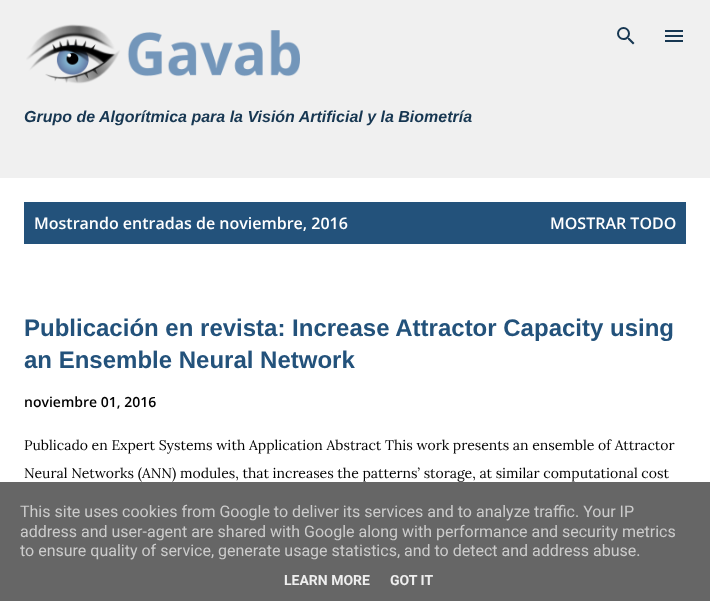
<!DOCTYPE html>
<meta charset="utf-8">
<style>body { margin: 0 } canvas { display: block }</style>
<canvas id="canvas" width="710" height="601"></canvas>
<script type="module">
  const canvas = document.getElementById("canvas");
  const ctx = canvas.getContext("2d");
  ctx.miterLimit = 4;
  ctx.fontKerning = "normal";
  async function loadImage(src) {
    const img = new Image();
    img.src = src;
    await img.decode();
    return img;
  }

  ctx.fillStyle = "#ffffff";
  ctx.fillRect(0, 0, 710, 601);
  ctx.fillStyle = "#f0f0f0";
  ctx.fillRect(0, 0, 710, 178);
  ctx.drawImage(await loadImage("img1.png"), 665, 30, 18, 12);
  ctx.drawImage(await loadImage("img2.png"), 617, 27, 18, 18);
  ctx.drawImage(await loadImage("img3.png"), 26, 24, 274, 60);
  ctx.font = "italic bold 16px Liberation Sans";
  ctx.fillStyle = "#173752";
  ctx.fillText("Grupo de Algorítmica para la Visión Artificial y la Biometría", 24, 122);
  ctx.fillStyle = "#23527b";
  ctx.fillRect(24, 202, 662, 42);
  ctx.font = "600 16px Open Sans";
  ctx.fillStyle = "#ffffff";
  ctx.fillText("Mostrando entradas de noviembre, 2016", 34, 229);
  ctx.fillText("MOSTRAR TODO", 550, 229);
  ctx.font = "bold 24px Liberation Sans";
  ctx.fillStyle = "#23527b";
  ctx.fillText("Publicación en revista: Increase Attractor Capacity using", 24, 336);
  ctx.fillText("an Ensemble Neural Network", 24, 368);
  ctx.font = "600 14px Open Sans";
  ctx.fillStyle = "#000000";
  ctx.fillText("noviembre 01, 2016", 24, 407);
  ctx.font = "14px Lora";
  ctx.fillText("Publicado en Expert Systems with Application Abstract This work presents an ensemble of Attractor", 24, 450);
  ctx.fillText("Neural Networks (ANN) modules, that increases the patterns’ storage, at similar computational cost", 24, 478);
  ctx.fillStyle = "#666666";
  ctx.fillRect(0, 482, 710, 119);
  ctx.font = "16px Roboto";
  ctx.fillStyle = "#cccccc";
  ctx.fillText("This site uses cookies from Google to deliver its services and to analyze traffic. Your IP", 20, 517);
  ctx.fillText("address and user-agent are shared with Google along with performance and security metrics", 20, 537);
  ctx.fillText("to ensure quality of service, generate usage statistics, and to detect and address abuse.", 20, 556);
  ctx.font = "bold 14px Roboto";
  ctx.fillStyle = "#eeeeee";
  ctx.fillText("LEARN MORE", 284, 585);
  ctx.fillText("GOT IT", 390, 585);
</script>
